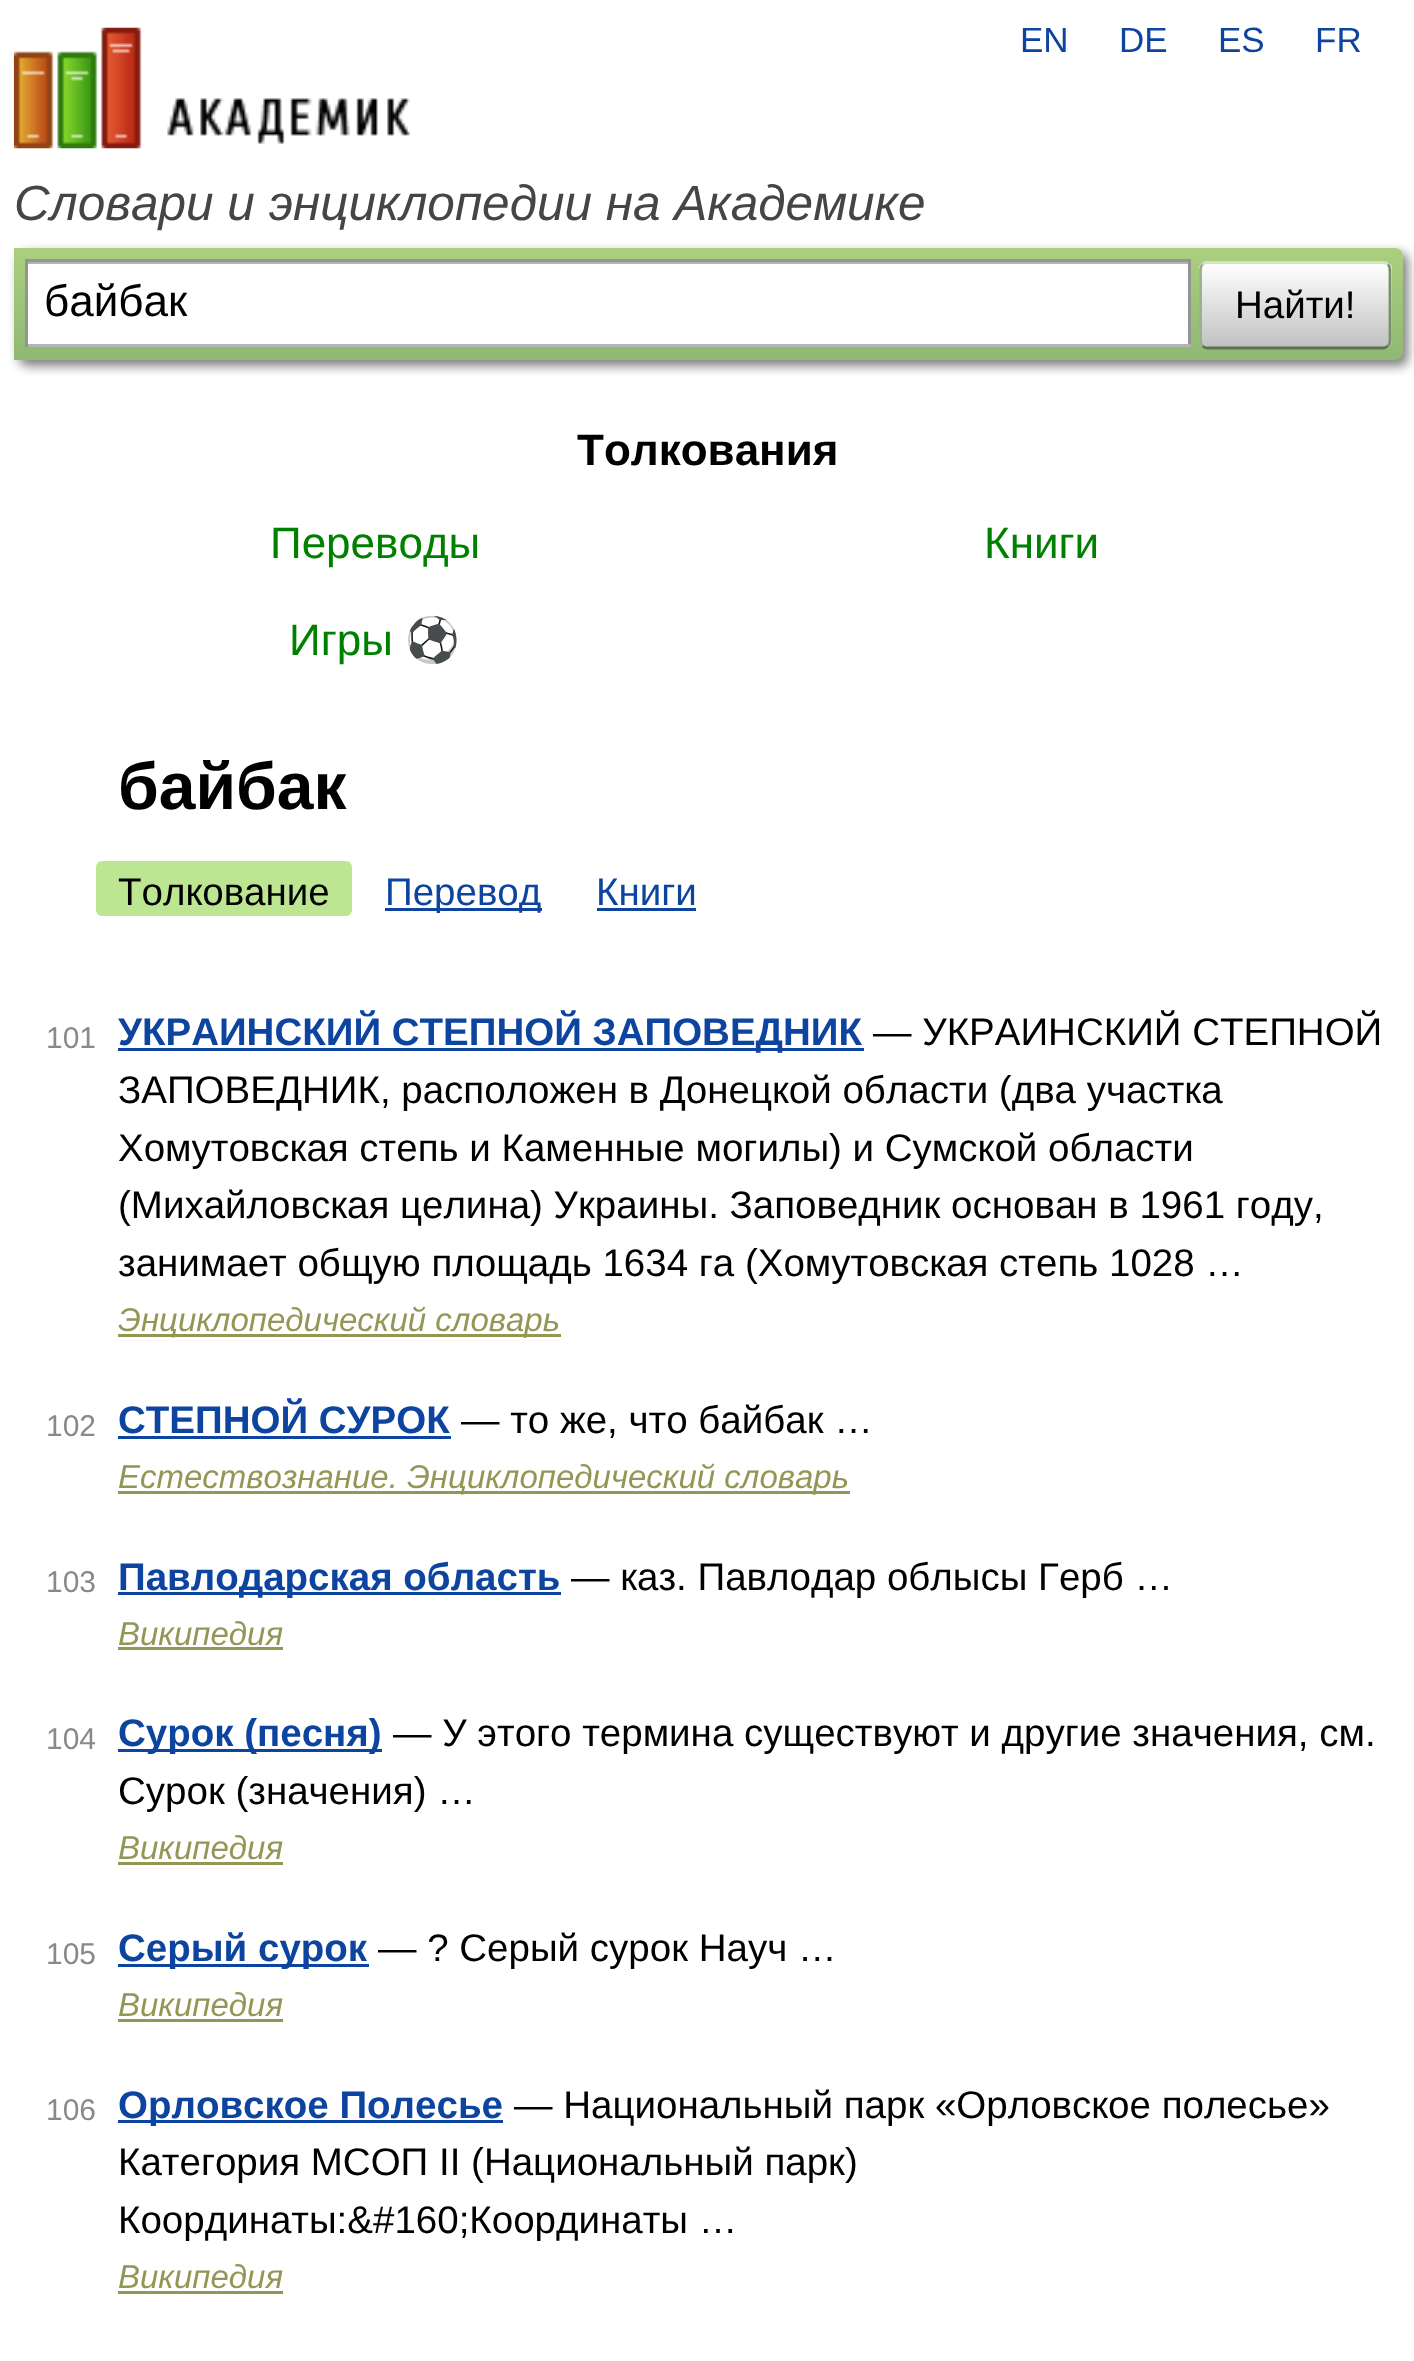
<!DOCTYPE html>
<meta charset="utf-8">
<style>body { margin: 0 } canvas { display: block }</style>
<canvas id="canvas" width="1414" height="2361"></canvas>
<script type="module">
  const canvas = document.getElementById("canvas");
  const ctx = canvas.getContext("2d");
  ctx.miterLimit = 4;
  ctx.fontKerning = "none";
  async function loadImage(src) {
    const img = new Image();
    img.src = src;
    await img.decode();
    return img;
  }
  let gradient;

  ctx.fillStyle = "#ffffff";
  ctx.fillRect(0, 0, 1414, 2361);
  ctx.drawImage(await loadImage("img1.png"), 13, 27, 397, 122);
  ctx.font = "35px Liberation Sans";
  ctx.fillStyle = "#0d44a0";
  ctx.fillText("EN", 1020, 52);
  ctx.fillText("DE", 1119, 52);
  ctx.fillText("ES", 1218, 52);
  ctx.fillText("FR", 1315, 52);
  ctx.font = "italic 49.5px Liberation Sans";
  ctx.fillStyle = "#454545";
  ctx.fillText("Словари и энциклопедии на Академике", 14, 220);
  ctx.fillStyle = "rgba(0, 0, 0, 0.5)";
  ctx.filter = "blur(5.5px)";
  ctx.beginPath();
  ctx.roundRect(19, 253, 1389, 113, 8);
  ctx.fill();
  ctx.filter = "none";
  gradient = ctx.createLinearGradient(708, 247, 708, 360);
  gradient.addColorStop(0, "#abcf7e");
  gradient.addColorStop(1, "#8eb874");
  ctx.fillStyle = gradient;
  ctx.beginPath();
  ctx.roundRect(14, 248, 1389, 112, [0, 8, 8, 0]);
  ctx.fill();
  ctx.fillStyle = "#ffffff";
  ctx.fillRect(28, 264, 1160, 80);
  ctx.fillStyle = "#b3b3b3";
  ctx.fillRect(28, 262, 1160, 2);
  ctx.fillStyle = "#949494";
  ctx.fillRect(25, 259, 1166, 3);
  ctx.fillRect(1188, 259, 3, 88);
  ctx.fillStyle = "#b4b4b4";
  ctx.fillRect(25, 344, 1166, 3);
  ctx.fillStyle = "#949494";
  ctx.fillRect(25, 259, 3, 88);
  ctx.font = "44px Liberation Sans";
  ctx.fillStyle = "#000000";
  ctx.fillText("байбак", 44, 316);
  ctx.save();
  ctx.beginPath();
  ctx.roundRect(1199, 261, 193, 88, 8);
  ctx.clip();
  gradient = ctx.createLinearGradient(1295, 182, 1295, 264);
  gradient.addColorStop(0, "#ffffff");
  gradient.addColorStop(1, "#c1c1c1");
  ctx.fillStyle = gradient;
  ctx.fillRect(1199, 261, 193, 3);
  gradient = ctx.createLinearGradient(1295, 264, 1295, 347);
  gradient.addColorStop(0, "#ffffff");
  gradient.addColorStop(1, "#c1c1c1");
  ctx.fillStyle = gradient;
  ctx.fillRect(1199, 264, 193, 83);
  gradient = ctx.createLinearGradient(1295, 347, 1295, 429);
  gradient.addColorStop(0, "#ffffff");
  gradient.addColorStop(1, "#c1c1c1");
  ctx.fillStyle = gradient;
  ctx.fillRect(1199, 347, 193, 2);
  ctx.restore();
  ctx.beginPath();
  ctx.moveTo(1202.5, 264.5);
  ctx.bezierCurveTo(1203.5, 263.5, 1205.5, 262.5, 1207, 262.5);
  ctx.lineTo(1383, 262.5);
  ctx.bezierCurveTo(1385, 262.5, 1387, 263.5, 1388, 264.5);
  ctx.strokeStyle = "#d1e4bc";
  ctx.lineWidth = 2.8;
  ctx.stroke();
  ctx.beginPath();
  ctx.moveTo(1388, 264.5);
  ctx.bezierCurveTo(1389.5, 266, 1390, 267.5, 1390, 269.5);
  ctx.lineTo(1390, 341);
  ctx.bezierCurveTo(1390, 343, 1389.5, 344.5, 1388, 346);
  ctx.strokeStyle = "#7a8e69";
  ctx.stroke();
  ctx.beginPath();
  ctx.moveTo(1388, 346);
  ctx.bezierCurveTo(1387, 347, 1385, 348, 1383, 348);
  ctx.lineTo(1207, 348);
  ctx.bezierCurveTo(1205.5, 348, 1203.5, 347, 1202.5, 346);
  ctx.strokeStyle = "#5d7250";
  ctx.stroke();
  ctx.beginPath();
  ctx.moveTo(1202.5, 346);
  ctx.bezierCurveTo(1201, 344.5, 1200.5, 343, 1200.5, 341);
  ctx.lineTo(1200.5, 269.5);
  ctx.bezierCurveTo(1200.5, 267.5, 1201, 266, 1202.5, 264.5);
  ctx.strokeStyle = "#9aae89";
  ctx.stroke();
  ctx.font = "38.5px Liberation Sans";
  ctx.fillText("Найти!", 1235, 318);
  ctx.font = "bold 44px Liberation Sans";
  ctx.fillText("Толкования", 577, 465);
  ctx.font = "44px Liberation Sans";
  ctx.fillStyle = "#008000";
  ctx.fillText("Переводы", 270, 558);
  ctx.fillText("Книги", 984, 558);
  ctx.fillText("Игры", 289, 655);
  ctx.font = "44px Noto Color Emoji";
  ctx.fillText("⚽", 405, 655);
  ctx.font = "bold 66px Liberation Sans";
  ctx.fillStyle = "#000000";
  ctx.fillText("байбак", 118, 809);
  ctx.fillStyle = "#bde693";
  ctx.beginPath();
  ctx.roundRect(96, 861, 256, 55, 6);
  ctx.fill();
  ctx.font = "38.5px Liberation Sans";
  ctx.fillStyle = "#000000";
  ctx.fillText("Толкование", 118, 905);
  ctx.fillStyle = "#0d44a0";
  ctx.fillRect(385, 908, 157, 3);
  ctx.fillText("Перевод", 385, 905);
  ctx.fillText("Книги", 596, 905);
  ctx.fillRect(597, 908, 99, 3);
  ctx.font = "30px Liberation Sans";
  ctx.fillStyle = "#898989";
  ctx.fillText("101", 46, 1048);
  ctx.fillStyle = "#0d44a0";
  ctx.fillRect(118, 1048, 746, 3);
  ctx.font = "bold 38.5px Liberation Sans";
  ctx.fillText("УКРАИНСКИЙ СТЕПНОЙ ЗАПОВЕДНИК", 118, 1045);
  ctx.font = "38.5px Liberation Sans";
  ctx.fillStyle = "#000000";
  ctx.fillText("— УКРАИНСКИЙ СТЕПНОЙ", 873, 1045);
  ctx.fillText("ЗАПОВЕДНИК, расположен в Донецкой области (два участка", 118, 1103);
  ctx.fillText("Хомутовская степь и Каменные могилы) и Сумской области", 118, 1161);
  ctx.fillText("(Михайловская целина) Украины. Заповедник основан в 1961 году,", 118, 1218);
  ctx.fillText("занимает общую площадь 1634 га (Хомутовская степь 1028 …", 118, 1276);
  ctx.fillStyle = "#939756";
  ctx.fillRect(118, 1334, 443, 3);
  ctx.font = "italic 33px Liberation Sans";
  ctx.fillText("Энциклопедический словарь", 118, 1331);
  ctx.font = "30px Liberation Sans";
  ctx.fillStyle = "#898989";
  ctx.fillText("102", 46, 1436);
  ctx.font = "bold 38.5px Liberation Sans";
  ctx.fillStyle = "#0d44a0";
  ctx.fillText("СТЕПНОЙ СУРОК", 118, 1433);
  ctx.fillRect(118, 1436, 333, 3);
  ctx.font = "38.5px Liberation Sans";
  ctx.fillStyle = "#000000";
  ctx.fillText("— то же, что байбак …", 461, 1433);
  ctx.fillStyle = "#939756";
  ctx.fillRect(118, 1491, 732, 3);
  ctx.font = "italic 33px Liberation Sans";
  ctx.fillText("Естествознание. Энциклопедический словарь", 118, 1488);
  ctx.font = "30px Liberation Sans";
  ctx.fillStyle = "#898989";
  ctx.fillText("103", 46, 1592);
  ctx.fillStyle = "#0d44a0";
  ctx.fillRect(118, 1592, 443, 3);
  ctx.font = "bold 38.5px Liberation Sans";
  ctx.fillText("Павлодарская область", 118, 1590);
  ctx.font = "38.5px Liberation Sans";
  ctx.fillStyle = "#000000";
  ctx.fillText("— каз. Павлодар облысы Герб …", 571, 1590);
  ctx.font = "italic 33px Liberation Sans";
  ctx.fillStyle = "#939756";
  ctx.fillText("Википедия", 118, 1645);
  ctx.fillRect(118, 1647, 165, 3);
  ctx.font = "30px Liberation Sans";
  ctx.fillStyle = "#898989";
  ctx.fillText("104", 46, 1749);
  ctx.fillStyle = "#0d44a0";
  ctx.fillRect(118, 1749, 264, 3);
  ctx.font = "bold 38.5px Liberation Sans";
  ctx.fillText("Сурок (песня)", 118, 1746);
  ctx.font = "38.5px Liberation Sans";
  ctx.fillStyle = "#000000";
  ctx.fillText("— У этого термина существуют и другие значения, см.", 393, 1746);
  ctx.fillText("Сурок (значения) …", 118, 1804);
  ctx.font = "italic 33px Liberation Sans";
  ctx.fillStyle = "#939756";
  ctx.fillText("Википедия", 118, 1859);
  ctx.fillRect(118, 1862, 165, 3);
  ctx.font = "30px Liberation Sans";
  ctx.fillStyle = "#898989";
  ctx.fillText("105", 46, 1964);
  ctx.fillStyle = "#0d44a0";
  ctx.fillRect(118, 1964, 251, 3);
  ctx.font = "bold 38.5px Liberation Sans";
  ctx.fillText("Серый сурок", 118, 1961);
  ctx.font = "38.5px Liberation Sans";
  ctx.fillStyle = "#000000";
  ctx.fillText("— ? Серый сурок Науч …", 378, 1961);
  ctx.font = "italic 33px Liberation Sans";
  ctx.fillStyle = "#939756";
  ctx.fillText("Википедия", 118, 2016);
  ctx.fillRect(118, 2019, 165, 3);
  ctx.font = "30px Liberation Sans";
  ctx.fillStyle = "#898989";
  ctx.fillText("106", 46, 2120);
  ctx.fillStyle = "#0d44a0";
  ctx.fillRect(118, 2120, 385, 3);
  ctx.font = "bold 38.5px Liberation Sans";
  ctx.fillText("Орловское Полесье", 118, 2118);
  ctx.font = "38.5px Liberation Sans";
  ctx.fillStyle = "#000000";
  ctx.fillText("— Национальный парк «Орловское полесье»", 514, 2118);
  ctx.fillText("Категория МСОП II (Национальный парк)", 118, 2175);
  ctx.fillText("Координаты:&#160;Координаты …", 118, 2233);
  ctx.font = "italic 33px Liberation Sans";
  ctx.fillStyle = "#939756";
  ctx.fillText("Википедия", 118, 2288);
  ctx.fillRect(118, 2291, 165, 3);
</script>
